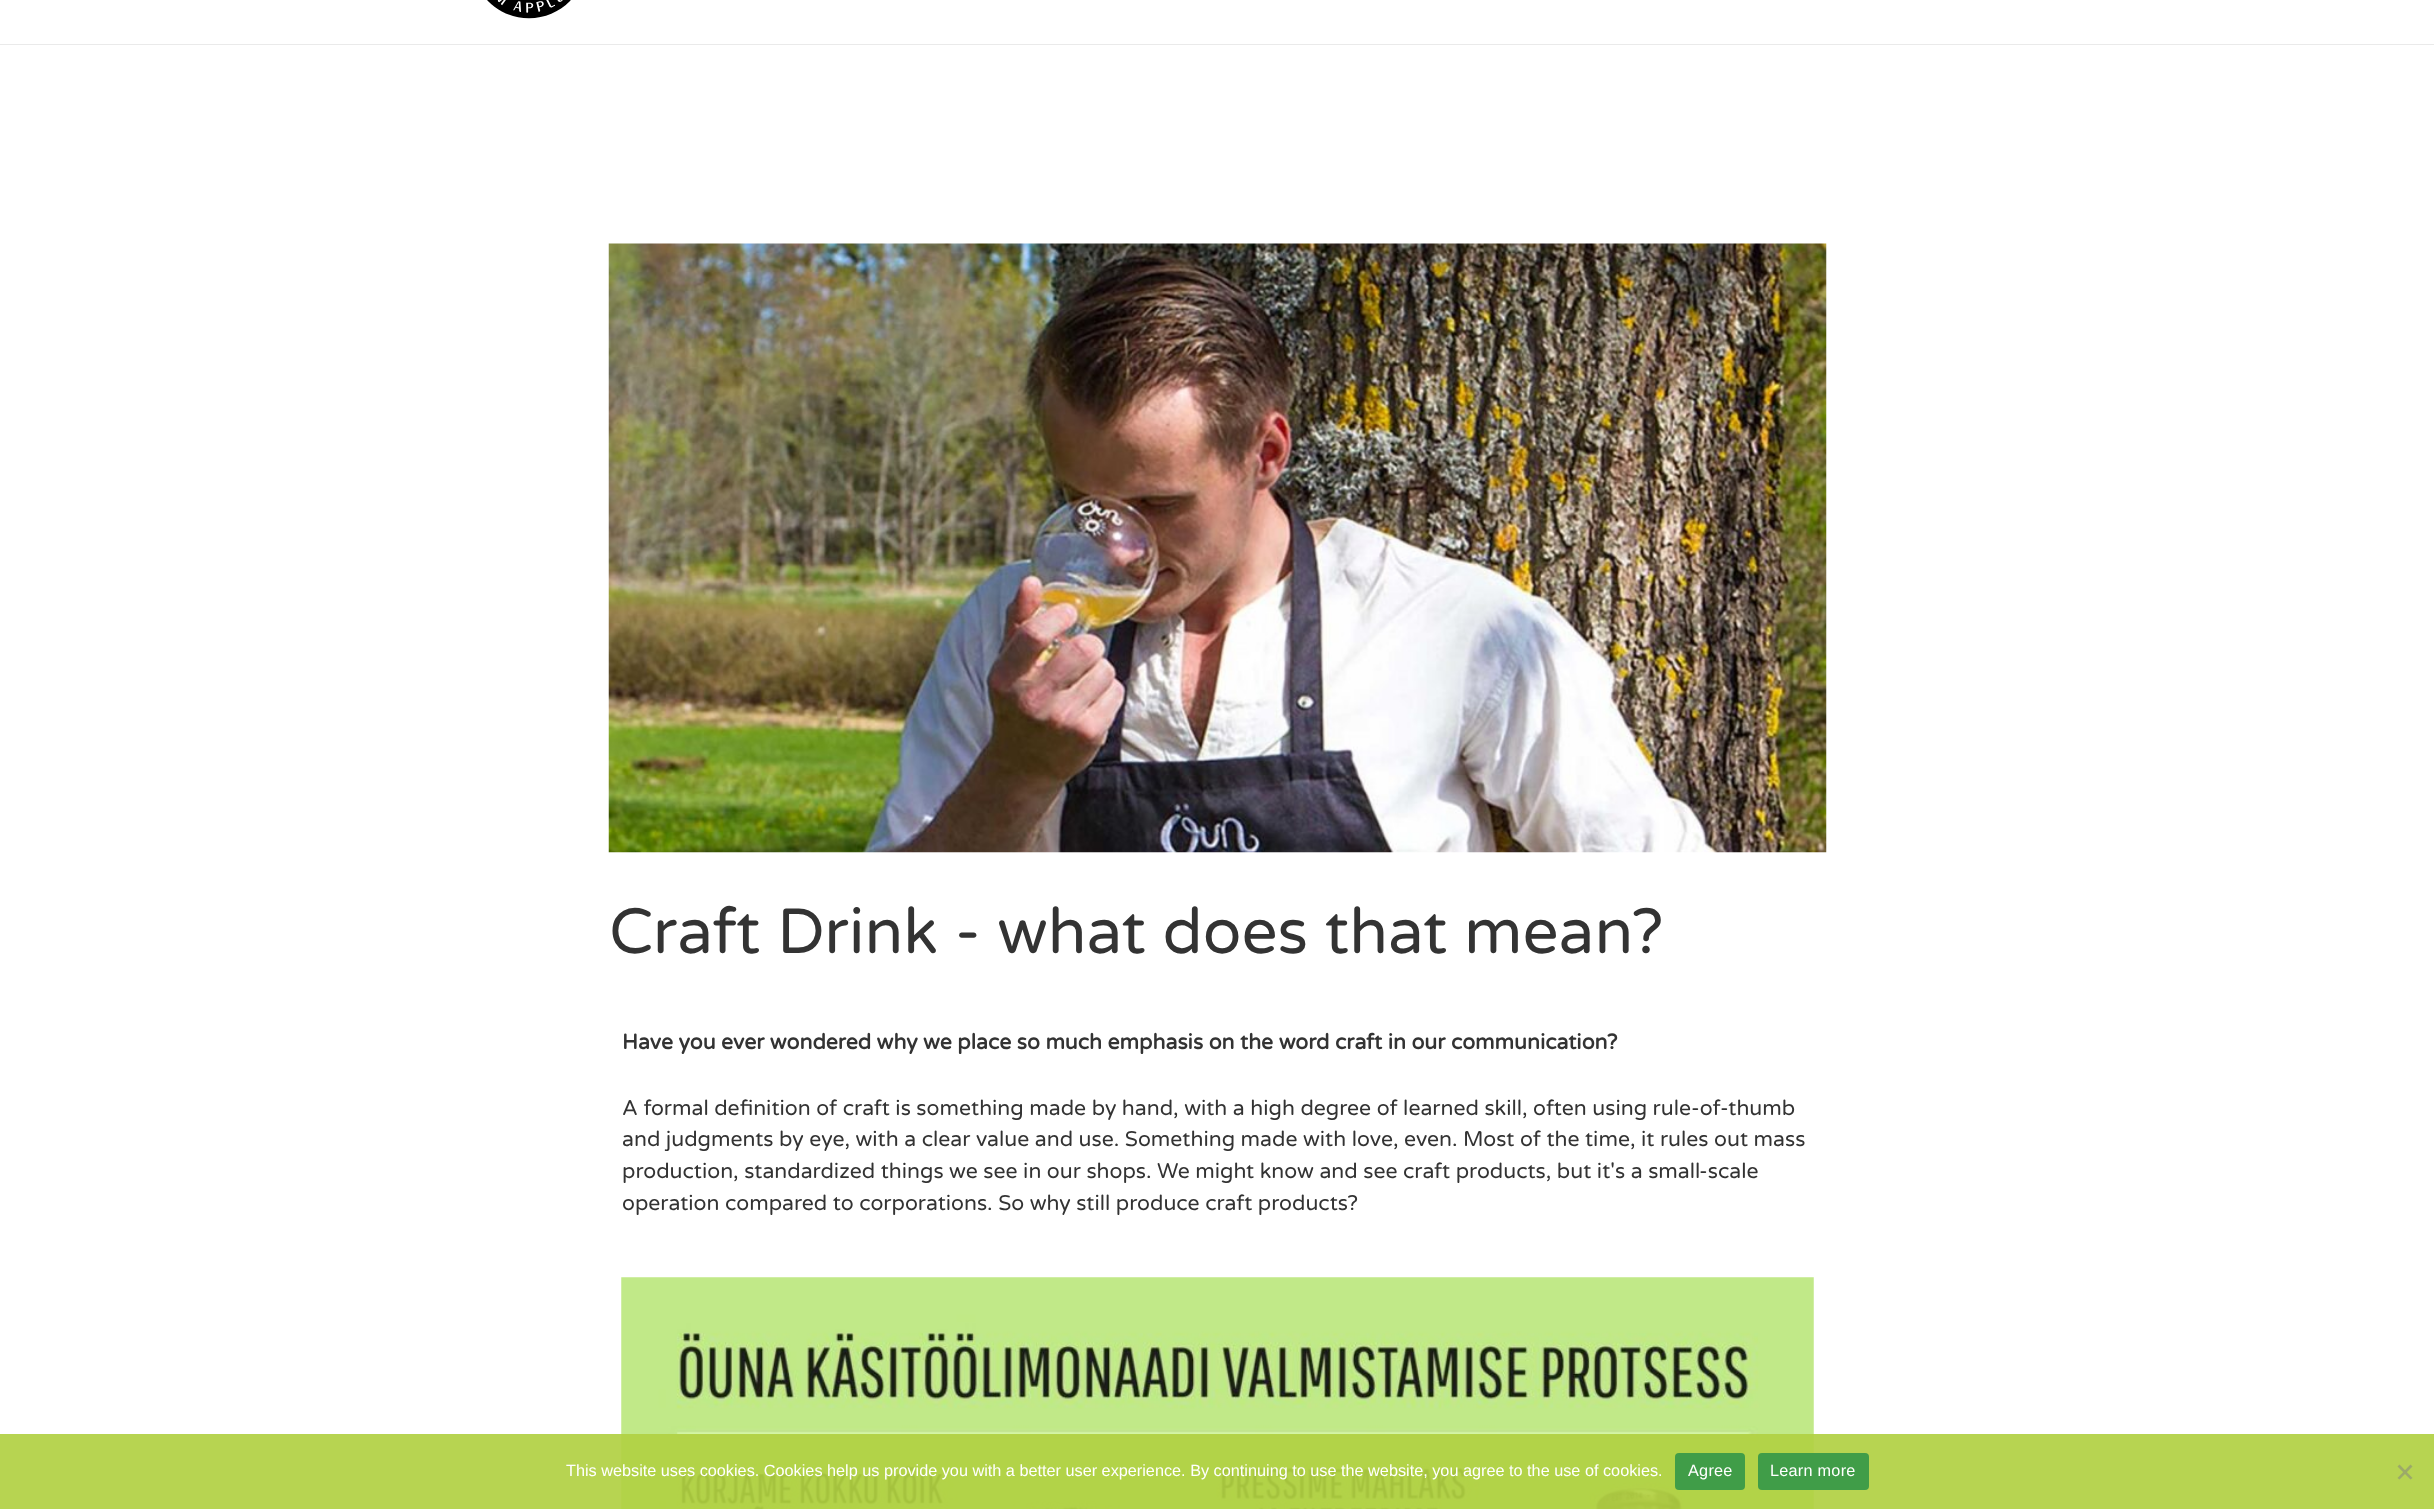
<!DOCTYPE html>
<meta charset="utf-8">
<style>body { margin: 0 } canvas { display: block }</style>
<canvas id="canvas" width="2434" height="1509"></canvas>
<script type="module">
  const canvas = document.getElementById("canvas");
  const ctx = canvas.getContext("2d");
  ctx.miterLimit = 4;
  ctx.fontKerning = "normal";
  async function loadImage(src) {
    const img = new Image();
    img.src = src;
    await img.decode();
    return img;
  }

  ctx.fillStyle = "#ffffff";
  ctx.fillRect(0, 0, 2434, 1509);
  ctx.fillStyle = "#eaeaea";
  ctx.fillRect(0, 44, 2434, 1);
  ctx.drawImage(await loadImage("img1.png"), 487, 0, 84, 19);
  ctx.drawImage(await loadImage("img2.png"), 608, 243, 1219, 610);
  ctx.font = "63.75px Varela Round";
  ctx.fillStyle = "#333333";
  ctx.fillText("Craft Drink - what does that mean?", 609, 953);
  ctx.font = "bold 21.25px Varela Round";
  ctx.fillText("Have you ever wondered why we place so much emphasis on the word craft in our communication?", 622, 1049);
  ctx.font = "21.25px Varela Round";
  ctx.fillText("A formal definition of craft is something made by hand, with a high degree of learned skill, often using rule-of-thumb", 622, 1115);
  ctx.fillText("and judgments by eye, with a clear value and use. Something made with love, even. Most of the time, it rules out mass", 622, 1146);
  ctx.fillText("production, standardized things we see in our shops. We might know and see craft products, but it's a small-scale", 622, 1178);
  ctx.fillText("operation compared to corporations. So why still produce craft products?", 622, 1210);
  ctx.drawImage(await loadImage("img3.png"), 621, 1277, 1193, 232);
  ctx.fillStyle = "rgba(177, 208, 66, 0.92)";
  ctx.fillRect(0, 1434, 2434, 75);
  ctx.font = "16.25px Liberation Sans";
  ctx.fillStyle = "#ffffff";
  ctx.fillText("This website uses cookies. Cookies help us provide you with a better user experience. By continuing to use the website, you agree to the use of cookies.", 566, 1476);
  ctx.fillStyle = "#409d48";
  ctx.beginPath();
  ctx.roundRect(1675, 1453, 70, 37, 4);
  ctx.fill();
  ctx.letterSpacing = "0.25px";
  ctx.fillStyle = "#ffffff";
  ctx.fillText("Agree", 1688, 1476);
  ctx.fillStyle = "#409d48";
  ctx.beginPath();
  ctx.roundRect(1758, 1453, 111, 37, 4);
  ctx.fill();
  ctx.fillStyle = "#ffffff";
  ctx.fillText("Learn more", 1770, 1476);
  ctx.fillStyle = "#9caa69";
  ctx.beginPath();
  ctx.moveTo(2410.5, 1464.5);
  ctx.lineTo(2412.5, 1466.5);
  ctx.lineTo(2399.5, 1479.5);
  ctx.lineTo(2397.5, 1478);
  ctx.closePath();
  ctx.fill();
  ctx.beginPath();
  ctx.moveTo(2397.5, 1466.5);
  ctx.lineTo(2399.5, 1464.5);
  ctx.lineTo(2412.5, 1478);
  ctx.lineTo(2410.5, 1479.5);
  ctx.closePath();
  ctx.fill();
</script>
